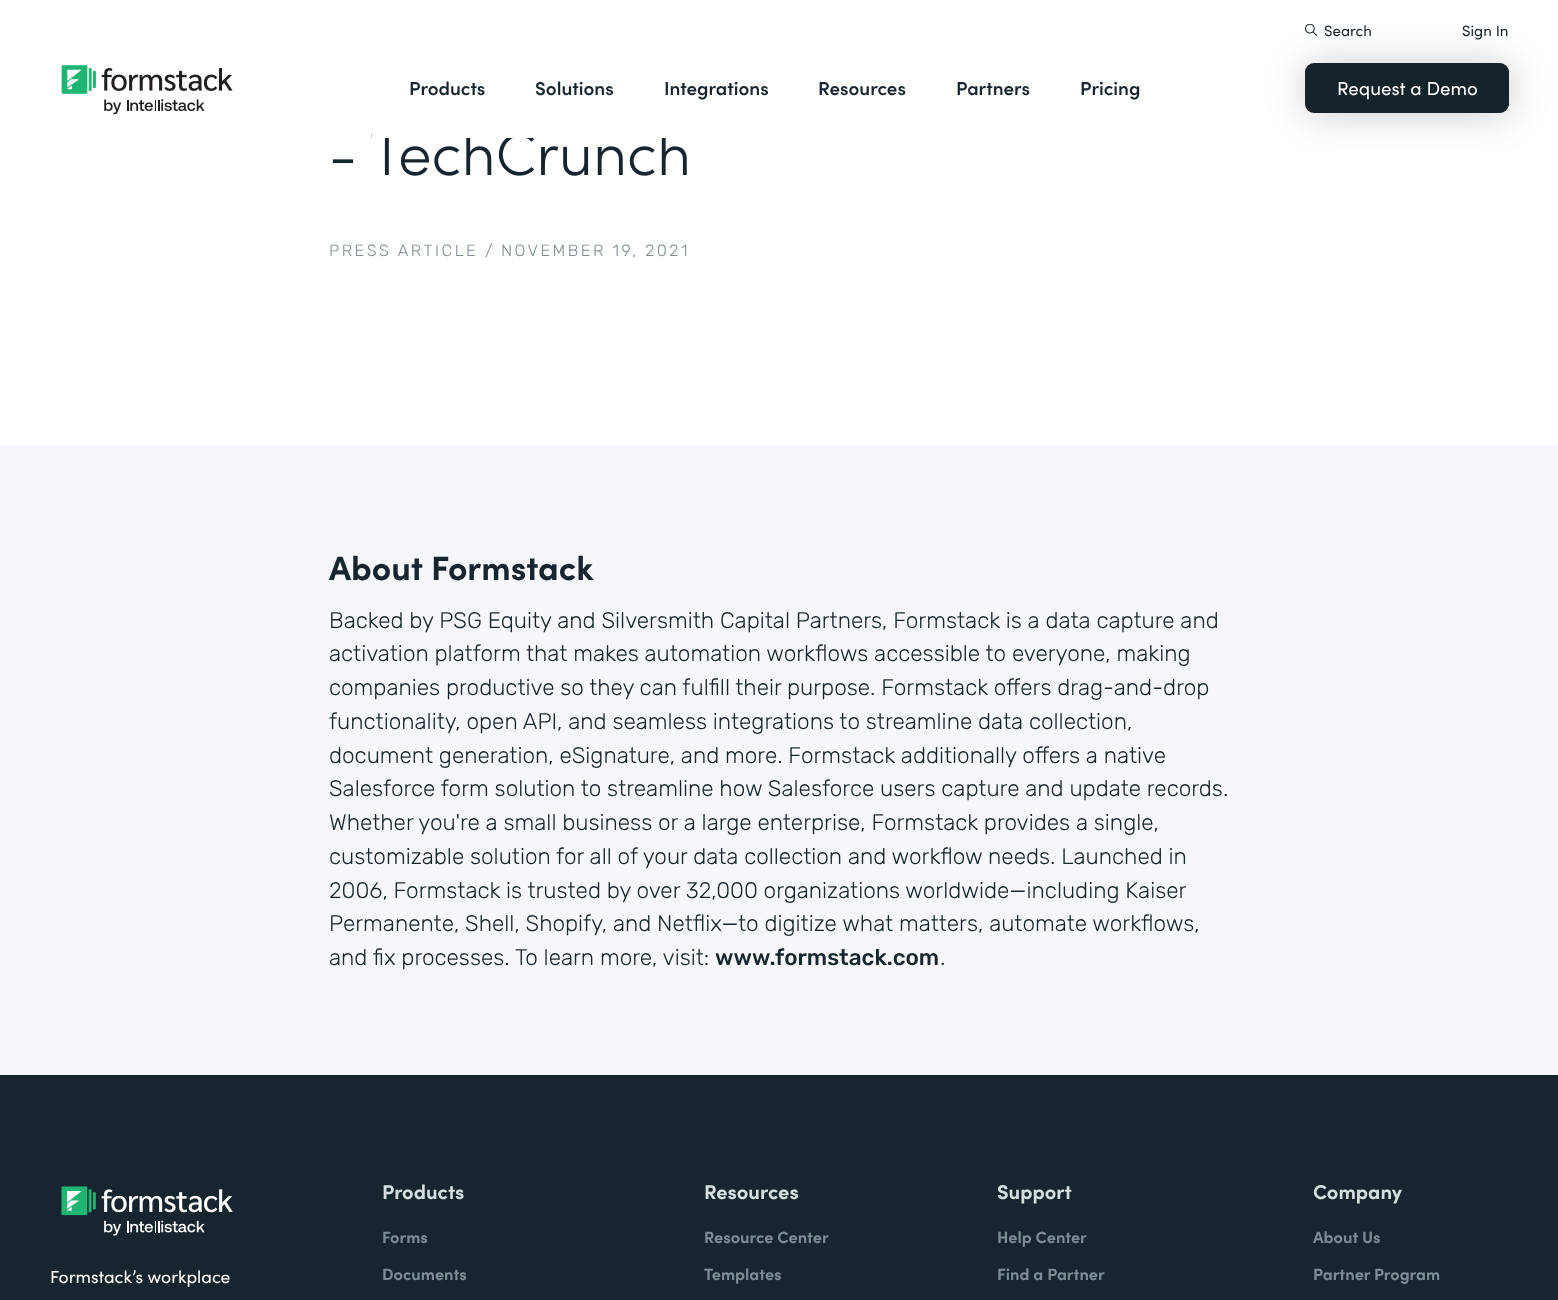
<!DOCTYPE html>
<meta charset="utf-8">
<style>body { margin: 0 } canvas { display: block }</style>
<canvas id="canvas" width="1558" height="1300"></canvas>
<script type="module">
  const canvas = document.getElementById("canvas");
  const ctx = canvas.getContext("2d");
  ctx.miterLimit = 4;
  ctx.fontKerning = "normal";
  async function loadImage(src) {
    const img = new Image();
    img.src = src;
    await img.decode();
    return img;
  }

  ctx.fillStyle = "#ffffff";
  ctx.fillRect(0, 0, 1558, 1300);
  ctx.font = "300 60px Sofia";
  ctx.fillStyle = "#17262e";
  ctx.fillText("- TechCrunch", 329, 175);
  ctx.fillStyle = "#ffffff";
  ctx.fillRect(372, 131, 295, 7);
  ctx.drawImage(await loadImage("img1.png"), 61, 65, 172, 50);
  ctx.font = "600 18.75px Sofia";
  ctx.fillStyle = "#17262e";
  ctx.fillText("Products", 409, 95);
  ctx.fillText("Solutions", 535, 95);
  ctx.fillText("Integrations", 664, 95);
  ctx.fillText("Resources", 818, 95);
  ctx.fillText("Partners", 956, 95);
  ctx.fillText("Pricing", 1080, 95);
  ctx.drawImage(await loadImage("img2.png"), 1305, 24, 13, 12);
  ctx.font = "15px Sofia";
  ctx.fillText("Search", 1324, 36);
  ctx.fillText("Sign In", 1462, 36);
  ctx.fillStyle = "rgba(0, 0, 0, 0.2)";
  ctx.filter = "blur(19px)";
  ctx.beginPath();
  ctx.roundRect(1306, 64, 204, 50, 9);
  ctx.fill();
  ctx.filter = "none";
  ctx.fillStyle = "#15232b";
  ctx.beginPath();
  ctx.roundRect(1305, 63, 204, 50, 9);
  ctx.fill();
  ctx.font = "18.75px Sofia";
  ctx.fillStyle = "#ffffff";
  ctx.fillText("Request a Demo", 1337, 95);
  ctx.letterSpacing = "2.5px";
  ctx.font = "300 16.25px Rubik";
  ctx.fillStyle = "#7d8c94";
  ctx.fillText("PRESS ARTICLE", 329, 256);
  ctx.fillText("/", 485, 256);
  ctx.fillText("NOVEMBER 19, 2021", 501, 256);
  ctx.fillStyle = "#f5f7fa";
  ctx.fillRect(0, 445, 1558, 630);
  ctx.letterSpacing = "0px";
  ctx.font = "bold 33.75px Sofia";
  ctx.fillStyle = "#17262e";
  ctx.fillText("About Formstack", 329, 580);
  ctx.font = "300 22.5px Rubik";
  ctx.fillText("Backed by PSG Equity and Silversmith Capital Partners, Formstack is a data capture and", 329, 628);
  ctx.fillText("activation platform that makes automation workflows accessible to everyone, making", 329, 661);
  ctx.fillText("companies productive so they can fulfill their purpose. Formstack offers drag-and-drop", 329, 695);
  ctx.fillText("functionality, open API, and seamless integrations to streamline data collection,", 329, 729);
  ctx.fillText("document generation, eSignature, and more. Formstack additionally offers a native", 329, 763);
  ctx.fillText("Salesforce form solution to streamline how Salesforce users capture and update records.", 329, 796);
  ctx.fillText("Whether you're a small business or a large enterprise, Formstack provides a single,", 329, 830);
  ctx.fillText("customizable solution for all of your data collection and workflow needs. Launched in", 329, 864);
  ctx.fillText("2006, Formstack is trusted by over 32,000 organizations worldwide—including Kaiser", 329, 898);
  ctx.fillText("Permanente, Shell, Shopify, and Netflix—to digitize what matters, automate workflows,", 329, 931);
  ctx.fillText("and fix processes. To learn more, visit:", 329, 965);
  ctx.font = "500 22.5px Rubik";
  ctx.fillText("www.formstack.com", 715, 965);
  ctx.font = "300 22.5px Rubik";
  ctx.fillText(".", 940, 965);
  ctx.fillRect(0, 1075, 1558, 225);
  ctx.drawImage(await loadImage("img3.png"), 61, 1186, 172, 50);
  ctx.font = "17.5px Sofia";
  ctx.fillStyle = "#ffffff";
  ctx.fillText("Formstack’s workplace", 50, 1283);
  ctx.font = "bold 20px Sofia";
  ctx.fillStyle = "#d6dee0";
  ctx.fillText("Products", 382, 1199);
  ctx.font = "bold 16.25px Sofia";
  ctx.fillStyle = "#7d8c94";
  ctx.fillText("Forms", 382, 1243);
  ctx.fillText("Documents", 382, 1280);
  ctx.font = "bold 20px Sofia";
  ctx.fillStyle = "#d6dee0";
  ctx.fillText("Resources", 704, 1199);
  ctx.font = "bold 16.25px Sofia";
  ctx.fillStyle = "#7d8c94";
  ctx.fillText("Resource Center", 704, 1243);
  ctx.fillText("Templates", 704, 1280);
  ctx.font = "bold 20px Sofia";
  ctx.fillStyle = "#d6dee0";
  ctx.fillText("Support", 997, 1199);
  ctx.font = "bold 16.25px Sofia";
  ctx.fillStyle = "#7d8c94";
  ctx.fillText("Help Center", 997, 1243);
  ctx.fillText("Find a Partner", 997, 1280);
  ctx.font = "bold 20px Sofia";
  ctx.fillStyle = "#d6dee0";
  ctx.fillText("Company", 1313, 1199);
  ctx.font = "bold 16.25px Sofia";
  ctx.fillStyle = "#7d8c94";
  ctx.fillText("About Us", 1313, 1243);
  ctx.fillText("Partner Program", 1313, 1280);
</script>
